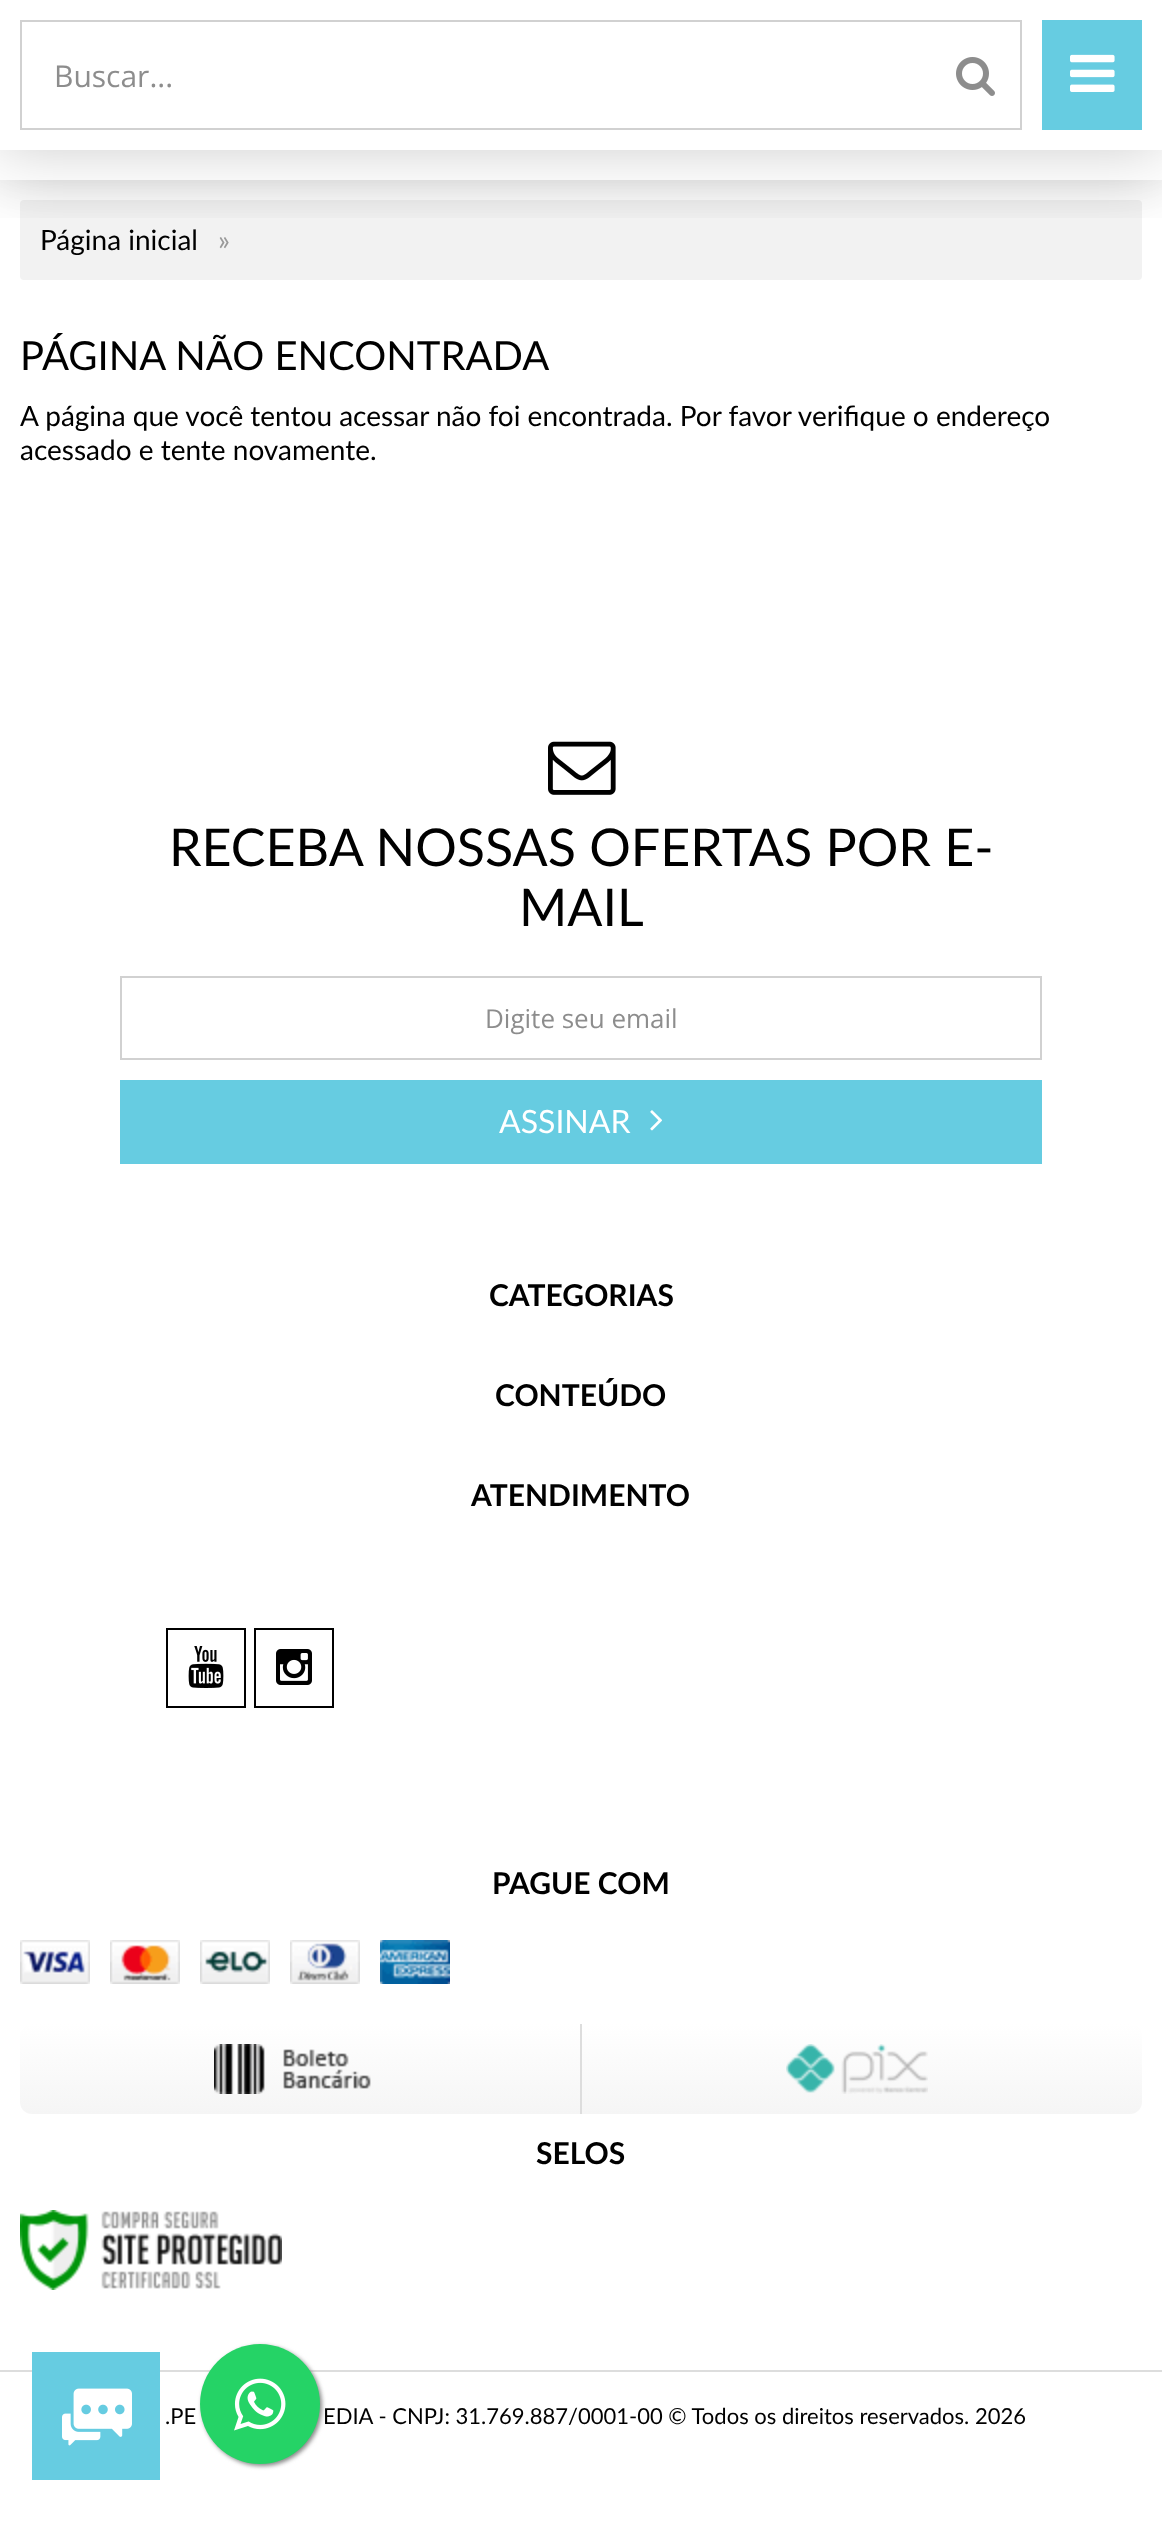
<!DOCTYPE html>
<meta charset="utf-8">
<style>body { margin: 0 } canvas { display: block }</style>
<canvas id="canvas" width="1162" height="2543"></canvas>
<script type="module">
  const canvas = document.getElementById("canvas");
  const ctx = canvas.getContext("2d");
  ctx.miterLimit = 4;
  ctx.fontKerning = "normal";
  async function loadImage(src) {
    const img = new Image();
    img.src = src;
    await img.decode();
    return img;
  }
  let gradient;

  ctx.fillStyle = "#ffffff";
  ctx.fillRect(0, 0, 1162, 2543);
  ctx.fillStyle = "#f2f2f2";
  ctx.beginPath();
  ctx.roundRect(20, 200, 1122, 80, 4);
  ctx.fill();
  ctx.save();
  ctx.beginPath();
  ctx.rect(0, 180, 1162, 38);
  ctx.clip();
  ctx.fillStyle = "rgba(0, 0, 0, 0.2)";
  ctx.filter = "blur(30px)";
  ctx.beginPath();
  ctx.rect(0, -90, 1162, 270);
  ctx.fill();
  ctx.filter = "none";
  ctx.restore();
  ctx.fillStyle = "rgba(0, 0, 0, 0.2)";
  ctx.filter = "blur(30px)";
  ctx.beginPath();
  ctx.rect(0, 0, 1162, 150);
  ctx.fill();
  ctx.filter = "none";
  ctx.fillStyle = "#ffffff";
  ctx.fillRect(0, 0, 1162, 150);
  ctx.strokeStyle = "#d1d1d1";
  ctx.lineWidth = 2;
  ctx.strokeRect(21, 21, 1000, 108);
  ctx.font = "30px Open Sans";
  ctx.fillStyle = "#8d8d8d";
  ctx.fillText("Buscar...", 54, 87);
  ctx.drawImage(await loadImage("img1.png"), 956, 57, 39, 39);
  ctx.fillStyle = "#66cce1";
  ctx.fillRect(1042, 20, 100, 110);
  ctx.drawImage(await loadImage("img2.png"), 1070, 54, 45, 38);
  ctx.font = "28px Lato";
  ctx.fillStyle = "#000000";
  ctx.fillText("Página inicial", 40, 250);
  ctx.fillStyle = "#999999";
  ctx.fillText("»", 218, 250);
  ctx.font = "40px Lato";
  ctx.fillStyle = "#000000";
  ctx.fillText("PÁGINA NÃO ENCONTRADA", 20, 370);
  ctx.font = "28px Lato";
  ctx.fillText("A página que você tentou acessar não foi encontrada. Por favor verifique o endereço", 20, 426);
  ctx.fillText("acessado e tente novamente.", 20, 460);
  ctx.drawImage(await loadImage("img3.png"), 548, 741, 68, 54);
  ctx.font = "52px Lato";
  ctx.fillText("RECEBA NOSSAS OFERTAS POR E-", 169, 866);
  ctx.fillText("MAIL", 519, 926);
  ctx.strokeRect(121, 977, 920, 82);
  ctx.font = "26px Open Sans";
  ctx.fillStyle = "#8d8d8d";
  ctx.fillText("Digite seu email", 485, 1028);
  ctx.fillStyle = "#66cce1";
  ctx.fillRect(120, 1080, 922, 84);
  ctx.font = "32px Lato";
  ctx.fillStyle = "#ffffff";
  ctx.fillText("ASSINAR", 499, 1133);
  ctx.drawImage(await loadImage("img4.png"), 650, 1110, 12, 21);
  ctx.font = "bold 30px Lato";
  ctx.fillStyle = "#000000";
  ctx.fillText("CATEGORIAS", 489, 1306);
  ctx.fillText("CONTEÚDO", 495, 1406);
  ctx.fillText("ATENDIMENTO", 471, 1506);
  ctx.strokeStyle = "#000000";
  ctx.strokeRect(167, 1629, 78, 78);
  ctx.drawImage(await loadImage("img5.png"), 188, 1646, 36, 42);
  ctx.strokeRect(255, 1629, 78, 78);
  ctx.drawImage(await loadImage("img6.png"), 276, 1649, 36, 36);
  ctx.fillText("PAGUE COM", 492, 1894);
  ctx.drawImage(await loadImage("img7.png"), 20, 1940, 70, 44);
  ctx.drawImage(await loadImage("img8.png"), 110, 1940, 70, 44);
  ctx.drawImage(await loadImage("img9.png"), 200, 1940, 70, 44);
  ctx.drawImage(await loadImage("img10.png"), 290, 1940, 70, 44);
  ctx.drawImage(await loadImage("img11.png"), 380, 1940, 70, 44);
  gradient = ctx.createLinearGradient(581, 2024, 581, 2114);
  gradient.addColorStop(0, "#ffffff");
  gradient.addColorStop(1, "#f5f5f5");
  ctx.fillStyle = gradient;
  ctx.beginPath();
  ctx.roundRect(20, 2024, 1122, 90, 12);
  ctx.fill();
  ctx.drawImage(await loadImage("img12.png"), 214, 2044, 157, 50);
  ctx.fillStyle = "#dddddd";
  ctx.fillRect(580, 2024, 2, 90);
  ctx.drawImage(await loadImage("img13.png"), 786, 2044, 142, 50);
  ctx.fillStyle = "#000000";
  ctx.fillText("SELOS", 536, 2164);
  ctx.drawImage(await loadImage("img14.png"), 20, 2210, 262, 80);
  ctx.fillStyle = "#dddddd";
  ctx.fillRect(0, 2370, 1162, 2);
  ctx.font = "22px Lato";
  ctx.fillStyle = "#000000";
  ctx.fillText(".PE", 165, 2424);
  ctx.fillText("EDIA - CNPJ: 31.769.887/0001-00 © Todos os direitos reservados. 2026", 323, 2424);
  ctx.fillStyle = "#66cce1";
  ctx.fillRect(32, 2352, 128, 128);
  ctx.drawImage(await loadImage("img15.png"), 62, 2388, 70, 58);
  ctx.fillStyle = "#888888";
  ctx.filter = "blur(2px)";
  ctx.beginPath();
  ctx.roundRect(202, 2346, 120, 120, 60);
  ctx.fill();
  ctx.filter = "none";
  ctx.fillStyle = "#25d366";
  ctx.beginPath();
  ctx.arc(260, 2404, 60, 0, Math.PI * 2);
  ctx.fill();
  ctx.drawImage(await loadImage("img16.png"), 234, 2378, 52, 53);
</script>
